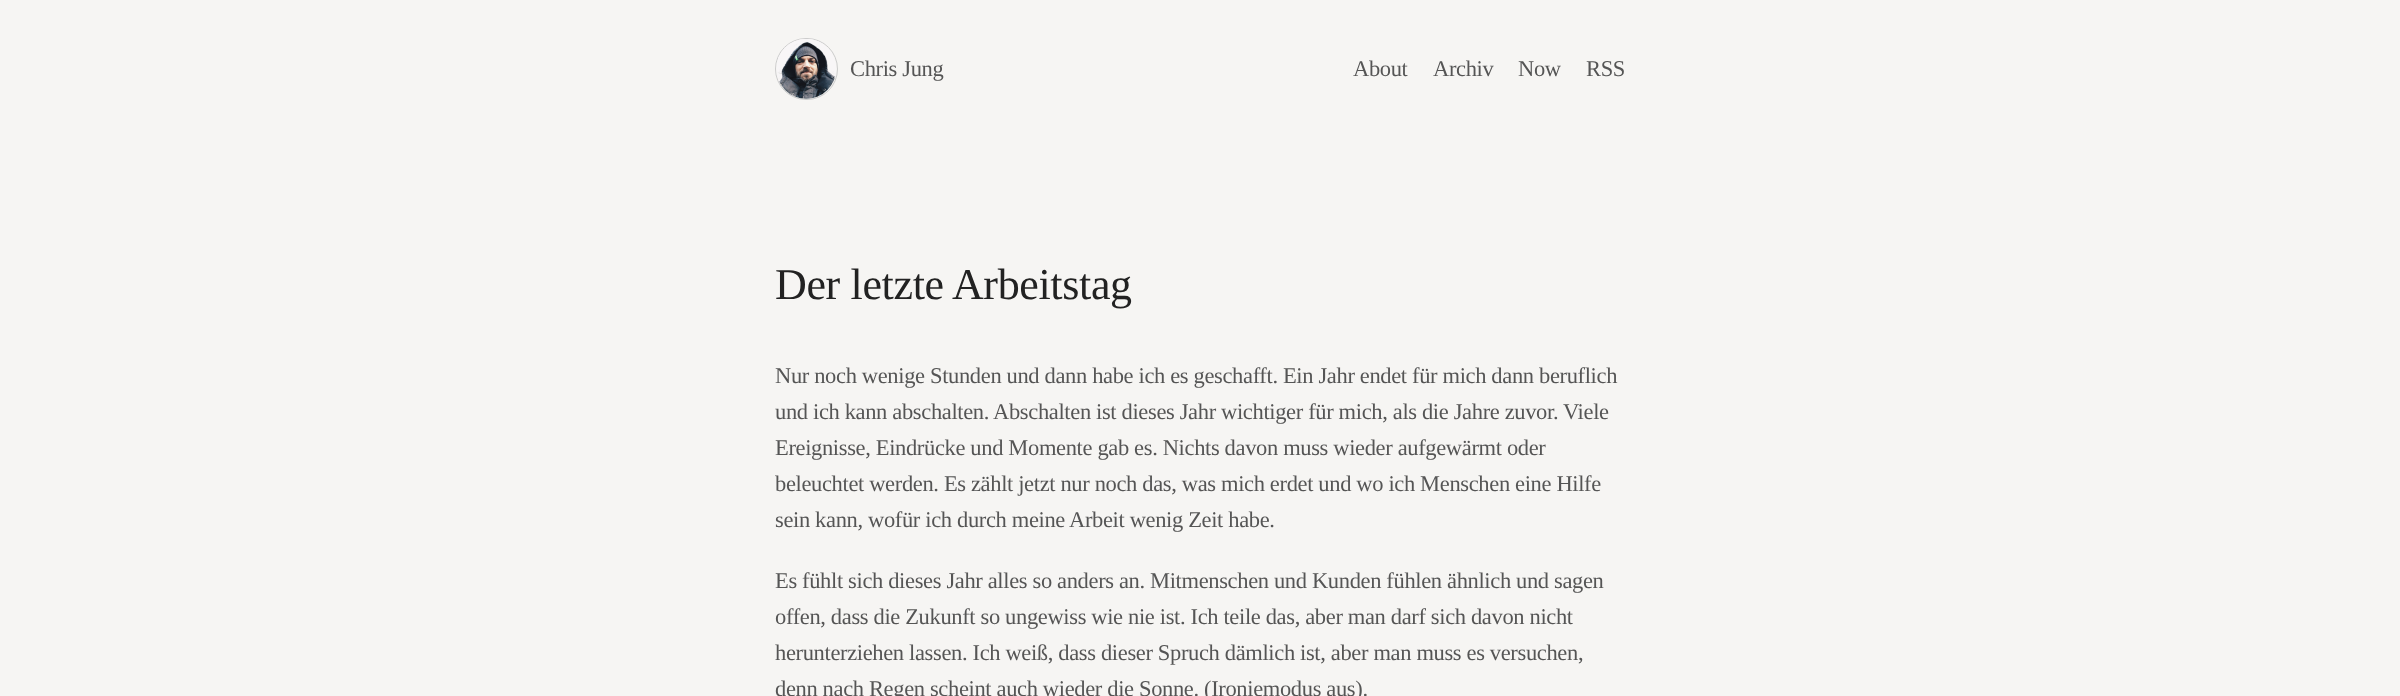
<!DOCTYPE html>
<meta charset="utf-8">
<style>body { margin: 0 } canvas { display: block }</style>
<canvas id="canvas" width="2400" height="696"></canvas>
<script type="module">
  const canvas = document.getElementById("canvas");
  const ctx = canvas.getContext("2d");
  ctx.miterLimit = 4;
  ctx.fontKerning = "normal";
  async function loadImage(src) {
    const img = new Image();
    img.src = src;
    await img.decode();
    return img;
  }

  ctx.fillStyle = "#f6f5f3";
  ctx.fillRect(0, 0, 2400, 696);
  ctx.beginPath();
  ctx.roundRect(775.5, 38.5, 62, 61, 30.5);
  ctx.strokeStyle = "#cccccc";
  ctx.stroke();
  ctx.drawImage(await loadImage("img1.png"), 776, 39, 60, 60);
  ctx.letterSpacing = "-0.35px";
  ctx.font = "22.5px Liberation Serif";
  ctx.fillStyle = "#555555";
  ctx.fillText("Chris Jung", 850, 76);
  ctx.fillText("About", 1353, 76);
  ctx.fillText("Archiv", 1433, 76);
  ctx.fillText("Now", 1518, 76);
  ctx.fillText("RSS", 1586, 76);
  ctx.font = "44px Liberation Serif";
  ctx.fillStyle = "#222222";
  ctx.fillText("Der letzte Arbeitstag", 775, 299);
  ctx.font = "22.5px Liberation Serif";
  ctx.fillStyle = "#555555";
  ctx.fillText("Nur noch wenige Stunden und dann habe ich es geschafft. Ein Jahr endet für mich dann beruflich", 775, 383);
  ctx.fillText("und ich kann abschalten. Abschalten ist dieses Jahr wichtiger für mich, als die Jahre zuvor. Viele", 775, 419);
  ctx.fillText("Ereignisse, Eindrücke und Momente gab es. Nichts davon muss wieder aufgewärmt oder", 775, 455);
  ctx.fillText("beleuchtet werden. Es zählt jetzt nur noch das, was mich erdet und wo ich Menschen eine Hilfe", 775, 491);
  ctx.fillText("sein kann, wofür ich durch meine Arbeit wenig Zeit habe.", 775, 527);
  ctx.fillText("Es fühlt sich dieses Jahr alles so anders an. Mitmenschen und Kunden fühlen ähnlich und sagen", 775, 588);
  ctx.fillText("offen, dass die Zukunft so ungewiss wie nie ist. Ich teile das, aber man darf sich davon nicht", 775, 624);
  ctx.fillText("herunterziehen lassen. Ich weiß, dass dieser Spruch dämlich ist, aber man muss es versuchen,", 775, 660);
  ctx.fillText("denn nach Regen scheint auch wieder die Sonne. (Ironiemodus aus).", 775, 696);
</script>
